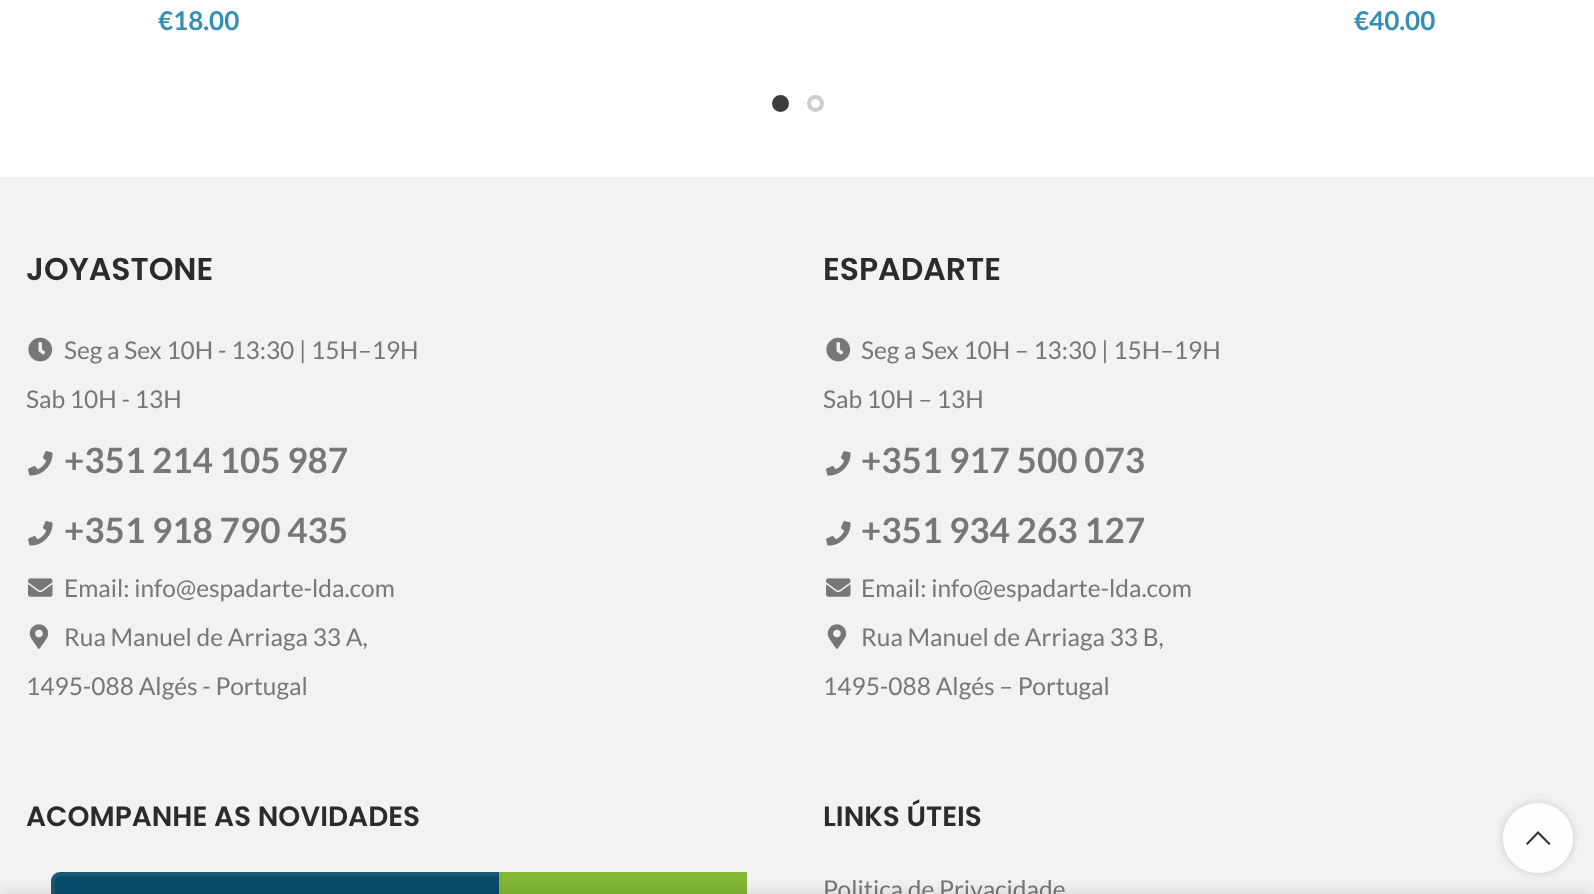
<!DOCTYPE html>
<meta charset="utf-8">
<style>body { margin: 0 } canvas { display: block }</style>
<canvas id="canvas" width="1594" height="894"></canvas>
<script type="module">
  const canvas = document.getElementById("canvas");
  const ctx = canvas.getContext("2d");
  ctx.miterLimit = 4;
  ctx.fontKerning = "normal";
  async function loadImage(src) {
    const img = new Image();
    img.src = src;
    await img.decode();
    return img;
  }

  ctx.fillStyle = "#ffffff";
  ctx.fillRect(0, 0, 1594, 894);
  ctx.font = "bold 26px Lato";
  ctx.fillStyle = "#358eb7";
  ctx.fillText("€18.00", 158, 30);
  ctx.fillText("€40.00", 1354, 30);
  ctx.fillStyle = "#3e3e3e";
  ctx.beginPath();
  ctx.arc(780.5, 103.5, 6.5, 0, Math.PI * 2);
  ctx.fill();
  ctx.strokeStyle = "#3e3e3e";
  ctx.lineWidth = 4;
  ctx.stroke();
  ctx.beginPath();
  ctx.arc(815.5, 103.5, 6.5, 0, Math.PI * 2);
  ctx.strokeStyle = "#cccccc";
  ctx.stroke();
  ctx.fillStyle = "#f2f2f2";
  ctx.fillRect(0, 177, 1594, 717);
  ctx.font = "600 31.5px Poppins";
  ctx.fillStyle = "#2d2a2a";
  ctx.fillText("JOYASTONE", 26, 280);
  ctx.drawImage(await loadImage("img1.png"), 28, 337, 25, 25);
  ctx.font = "24.5px Lato";
  ctx.fillStyle = "#777777";
  ctx.fillText("Seg a Sex 10H - 13:30 | 15H–19H", 64, 359);
  ctx.fillText("Sab 10H - 13H", 26, 408);
  ctx.drawImage(await loadImage("img2.png"), 28, 451, 25, 25);
  ctx.font = "bold 35px Lato";
  ctx.fillText("+351 214 105 987", 64, 473);
  ctx.drawImage(await loadImage("img2.png"), 28, 521, 25, 25);
  ctx.fillText("+351 918 790 435", 64, 543);
  ctx.drawImage(await loadImage("img3.png"), 28, 578, 25, 19);
  ctx.font = "24.5px Lato";
  ctx.fillText("Email: info@espadarte-lda.com", 64, 597);
  ctx.drawImage(await loadImage("img4.png"), 29, 624, 20, 25);
  ctx.fillText("Rua Manuel de Arriaga 33 A,", 64, 646);
  ctx.fillText("1495-088 Algés - Portugal", 26, 695);
  ctx.font = "600 31.5px Poppins";
  ctx.fillStyle = "#2d2a2a";
  ctx.fillText("ESPADARTE", 823, 280);
  ctx.drawImage(await loadImage("img1.png"), 826, 337, 25, 25);
  ctx.font = "24.5px Lato";
  ctx.fillStyle = "#777777";
  ctx.fillText("Seg a Sex 10H – 13:30 | 15H–19H", 861, 359);
  ctx.fillText("Sab 10H – 13H", 823, 408);
  ctx.drawImage(await loadImage("img2.png"), 826, 451, 25, 25);
  ctx.font = "bold 35px Lato";
  ctx.fillText("+351 917 500 073", 861, 473);
  ctx.drawImage(await loadImage("img2.png"), 826, 521, 25, 25);
  ctx.fillText("+351 934 263 127", 861, 543);
  ctx.drawImage(await loadImage("img3.png"), 826, 578, 25, 19);
  ctx.font = "24.5px Lato";
  ctx.fillText("Email: info@espadarte-lda.com", 861, 597);
  ctx.drawImage(await loadImage("img4.png"), 827, 624, 20, 25);
  ctx.fillText("Rua Manuel de Arriaga 33 B,", 861, 646);
  ctx.fillText("1495-088 Algés – Portugal", 823, 695);
  ctx.font = "600 28px Poppins";
  ctx.fillStyle = "#2d2a2a";
  ctx.fillText("ACOMPANHE AS NOVIDADES", 26, 826);
  ctx.fillStyle = "#084d6e";
  ctx.beginPath();
  ctx.roundRect(51, 872, 507, 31, 9);
  ctx.fill();
  ctx.beginPath();
  ctx.roundRect(53, 874, 503, 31, 7);
  ctx.strokeStyle = "rgba(129, 129, 129, 0.2)";
  ctx.stroke();
  ctx.fillStyle = "#83b735";
  ctx.fillRect(499, 872, 248, 22);
  ctx.fillStyle = "#2d2a2a";
  ctx.fillText("LINKS ÚTEIS", 823, 826);
  ctx.font = "24.5px Lato";
  ctx.fillStyle = "#777777";
  ctx.fillText("Politica de Privacidade", 823, 898);
  ctx.save();
  ctx.beginPath();
  ctx.moveTo(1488, 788);
  ctx.lineTo(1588, 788);
  ctx.lineTo(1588, 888);
  ctx.lineTo(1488, 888);
  ctx.closePath();
  ctx.moveTo(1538, 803);
  ctx.bezierCurveTo(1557.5, 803, 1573, 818.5, 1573, 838);
  ctx.bezierCurveTo(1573, 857.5, 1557.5, 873, 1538, 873);
  ctx.bezierCurveTo(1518.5, 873, 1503, 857.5, 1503, 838);
  ctx.bezierCurveTo(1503, 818.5, 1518.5, 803, 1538, 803);
  ctx.closePath();
  ctx.clip("evenodd");
  ctx.fillStyle = "rgba(0, 0, 0, 0.17)";
  ctx.filter = "blur(4.5px)";
  ctx.beginPath();
  ctx.roundRect(1503, 803, 70, 70, 35);
  ctx.fill();
  ctx.filter = "none";
  ctx.restore();
  ctx.fillStyle = "rgba(255, 255, 255, 0.9)";
  ctx.beginPath();
  ctx.arc(1538, 838, 35, 0, Math.PI * 2);
  ctx.fill();
  ctx.fillStyle = "#333333";
  ctx.beginPath();
  ctx.moveTo(1538, 831);
  ctx.lineTo(1550.5, 843.5);
  ctx.lineTo(1549, 845);
  ctx.lineTo(1538, 834);
  ctx.lineTo(1527.5, 845);
  ctx.lineTo(1526, 843.5);
  ctx.closePath();
  ctx.fill();
  ctx.fillStyle = "rgba(0, 0, 0, 0.14)";
  ctx.filter = "blur(8px)";
  ctx.beginPath();
  ctx.rect(0, 894, 1594, 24);
  ctx.fill();
  ctx.filter = "none";
</script>
